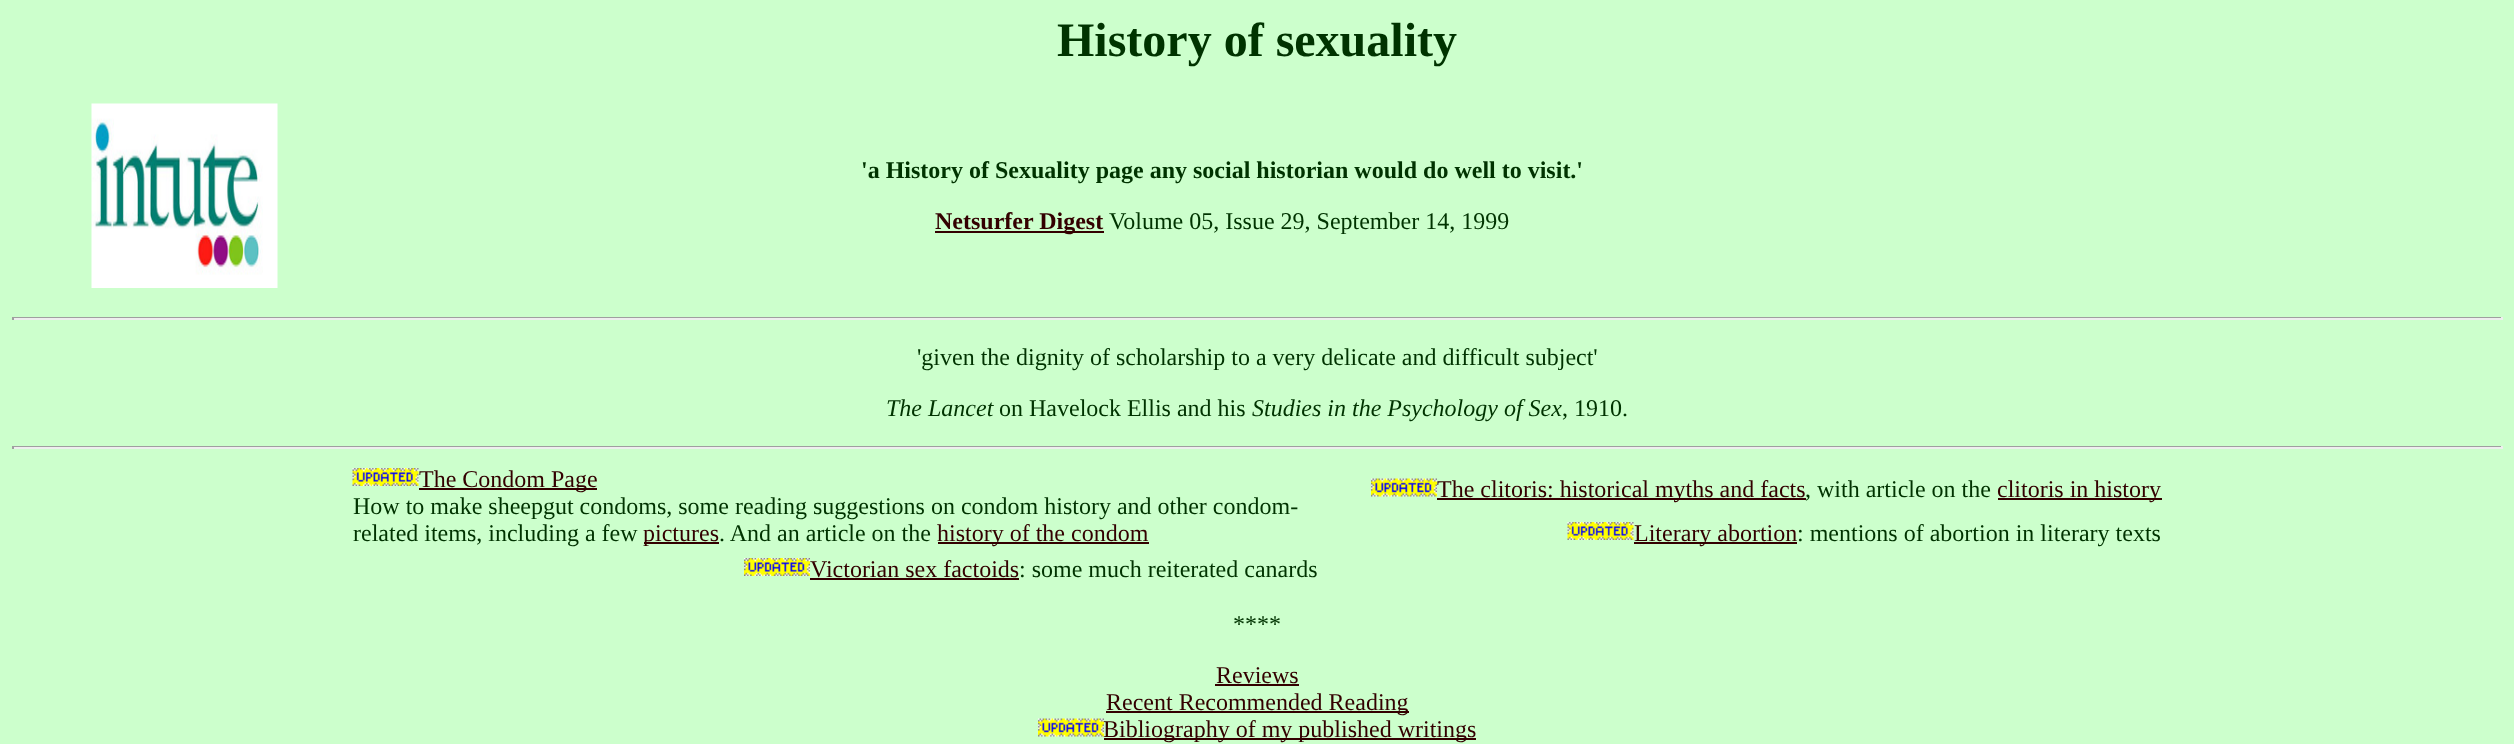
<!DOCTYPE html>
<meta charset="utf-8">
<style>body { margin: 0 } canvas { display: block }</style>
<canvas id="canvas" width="2514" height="744"></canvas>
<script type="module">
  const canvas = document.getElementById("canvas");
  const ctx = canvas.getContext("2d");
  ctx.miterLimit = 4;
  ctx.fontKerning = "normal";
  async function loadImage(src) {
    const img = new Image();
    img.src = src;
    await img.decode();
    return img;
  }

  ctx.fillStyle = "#ccffcc";
  ctx.fillRect(0, 0, 2514, 744);
  ctx.font = "bold 48px Liberation Serif";
  ctx.fillStyle = "#003300";
  ctx.fillText("History of sexuality", 1057, 56);
  ctx.drawImage(await loadImage("img1.png"), 91, 103, 187, 185);
  ctx.font = "bold 24px Liberation Serif";
  ctx.fillText("'a History of Sexuality page any social historian would do well to visit.'", 861, 178);
  ctx.fillStyle = "#330000";
  ctx.fillRect(935, 231, 169, 2);
  ctx.fillText("Netsurfer Digest", 935, 229);
  ctx.font = "24px Liberation Serif";
  ctx.fillStyle = "#003300";
  ctx.fillText("Volume 05, Issue 29, September 14, 1999", 1109, 229);
  ctx.fillStyle = "#9f9f9f";
  ctx.fillRect(12, 317, 2490, 1);
  ctx.fillStyle = "#eeeeee";
  ctx.fillRect(2501, 317, 2, 3);
  ctx.fillRect(12, 318, 2490, 2);
  ctx.fillStyle = "#9f9f9f";
  ctx.fillRect(12, 317, 2, 3);
  ctx.fillStyle = "#003300";
  ctx.fillText("'given the dignity of scholarship to a very delicate and difficult subject'", 917, 365);
  ctx.font = "italic 24px Liberation Serif";
  ctx.fillText("The Lancet", 886, 416);
  ctx.font = "24px Liberation Serif";
  ctx.fillText("on Havelock Ellis and his", 999, 416);
  ctx.font = "italic 24px Liberation Serif";
  ctx.fillText("Studies in the Psychology of Sex", 1252, 416);
  ctx.font = "24px Liberation Serif";
  ctx.fillText(", 1910.", 1562, 416);
  ctx.fillStyle = "#9f9f9f";
  ctx.fillRect(12, 446, 2490, 1);
  ctx.fillStyle = "#eeeeee";
  ctx.fillRect(2501, 446, 2, 3);
  ctx.fillRect(12, 447, 2490, 2);
  ctx.fillStyle = "#9f9f9f";
  ctx.fillRect(12, 446, 2, 3);
  ctx.drawImage(await loadImage("img2.png"), 352, 468, 67, 18);
  ctx.fillStyle = "#330000";
  ctx.fillRect(419, 488, 178, 2);
  ctx.fillText("The Condom Page", 419, 487);
  ctx.fillStyle = "#003300";
  ctx.fillText("How to make sheepgut condoms, some reading suggestions on condom history and other condom-", 353, 514);
  ctx.fillText("related items, including a few", 353, 541);
  ctx.fillStyle = "#330000";
  ctx.fillRect(644, 542, 75, 2);
  ctx.fillText("pictures", 643, 541);
  ctx.fillStyle = "#003300";
  ctx.fillText(". And an article on the", 719, 541);
  ctx.fillStyle = "#330000";
  ctx.fillRect(938, 542, 211, 2);
  ctx.fillText("history of the condom", 937, 541);
  ctx.drawImage(await loadImage("img3.png"), 1371, 478, 66, 19);
  ctx.fillRect(1437, 498, 369, 2);
  ctx.fillText("The clitoris: historical myths and facts", 1437, 497);
  ctx.fillStyle = "#003300";
  ctx.fillText(", with article on the", 1805, 497);
  ctx.fillStyle = "#330000";
  ctx.fillRect(1998, 498, 164, 2);
  ctx.fillText("clitoris in history", 1997, 497);
  ctx.drawImage(await loadImage("img4.png"), 1567, 522, 67, 18);
  ctx.fillRect(1634, 542, 163, 2);
  ctx.fillText("Literary abortion", 1634, 541);
  ctx.fillStyle = "#003300";
  ctx.fillText(": mentions of abortion in literary texts", 1797, 541);
  ctx.drawImage(await loadImage("img5.png"), 744, 558, 66, 18);
  ctx.fillStyle = "#330000";
  ctx.fillText("Victorian sex factoids", 810, 577);
  ctx.fillRect(810, 578, 209, 2);
  ctx.fillStyle = "#003300";
  ctx.fillText(": some much reiterated canards", 1019, 577);
  ctx.fillText("****", 1233, 632);
  ctx.fillStyle = "#330000";
  ctx.fillText("Reviews", 1216, 683);
  ctx.fillRect(1215, 684, 84, 2);
  ctx.fillRect(1106, 711, 303, 2);
  ctx.fillText("Recent Recommended Reading", 1106, 710);
  ctx.drawImage(await loadImage("img6.png"), 1038, 718, 66, 19);
  ctx.fillRect(1104, 738, 372, 2);
  ctx.fillText("Bibliography of my published writings", 1103, 737);
</script>
